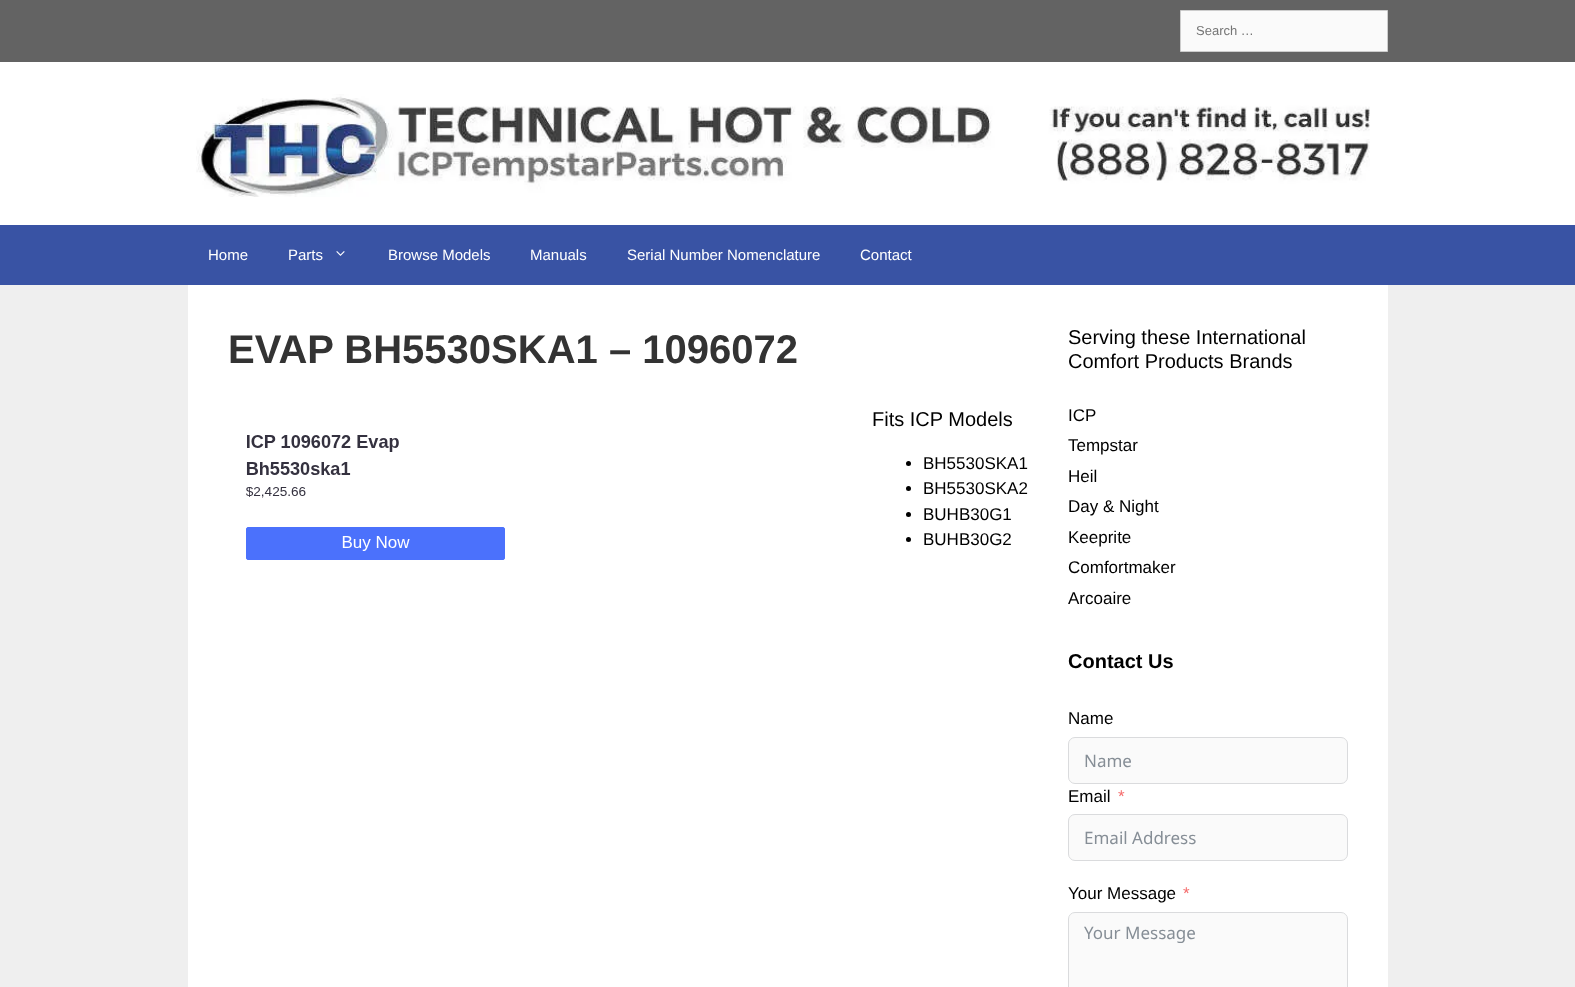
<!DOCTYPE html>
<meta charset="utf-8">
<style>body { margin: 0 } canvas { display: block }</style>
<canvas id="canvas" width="1575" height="987"></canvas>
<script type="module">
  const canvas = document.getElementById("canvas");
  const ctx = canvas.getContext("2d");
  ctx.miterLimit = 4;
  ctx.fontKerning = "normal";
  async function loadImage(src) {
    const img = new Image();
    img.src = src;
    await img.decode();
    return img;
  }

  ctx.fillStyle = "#efefef";
  ctx.fillRect(0, 0, 1575, 987);
  ctx.fillStyle = "#636363";
  ctx.fillRect(0, 0, 1575, 62);
  ctx.fillStyle = "#fafafa";
  ctx.beginPath();
  ctx.rect(1180.5, 10.5, 207, 41);
  ctx.fill();
  ctx.strokeStyle = "#cccccc";
  ctx.stroke();
  ctx.font = "13px Liberation Sans";
  ctx.fillStyle = "#757575";
  ctx.fillText("Search …", 1196, 35);
  ctx.fillStyle = "#ffffff";
  ctx.fillRect(0, 62, 1575, 163);
  ctx.drawImage(await loadImage("img1.png"), 196, 94, 1174, 103);
  ctx.fillStyle = "#3953a4";
  ctx.fillRect(0, 225, 1575, 60);
  ctx.font = "15px Liberation Sans";
  ctx.fillStyle = "#ffffff";
  ctx.fillText("Home", 208, 260);
  ctx.fillText("Parts", 288, 260);
  ctx.drawImage(await loadImage("img2.png"), 336, 251, 9, 5);
  ctx.fillText("Browse Models", 388, 260);
  ctx.fillText("Manuals", 530, 260);
  ctx.fillText("Serial Number Nomenclature", 627, 260);
  ctx.fillText("Contact", 860, 260);
  ctx.fillRect(188, 285, 1200, 702);
  ctx.font = "bold 40px Liberation Sans";
  ctx.fillStyle = "#333333";
  ctx.fillText("EVAP BH5530SKA1 – 1096072", 228, 363);
  ctx.drawImage(await loadImage("img3.png"), 246, 435, 259, 125);
  ctx.font = "20px Liberation Sans";
  ctx.fillStyle = "#000000";
  ctx.fillText("Fits ICP Models", 872, 426);
  ctx.beginPath();
  ctx.arc(908.5, 463.5, 2.5, 0, Math.PI * 2);
  ctx.fill();
  ctx.font = "17px Liberation Sans";
  ctx.fillText("BH5530SKA1", 923, 469);
  ctx.beginPath();
  ctx.arc(908.5, 488.5, 2.5, 0, Math.PI * 2);
  ctx.fill();
  ctx.fillText("BH5530SKA2", 923, 494);
  ctx.beginPath();
  ctx.arc(908.5, 514.5, 2.5, 0, Math.PI * 2);
  ctx.fill();
  ctx.fillText("BUHB30G1", 923, 520);
  ctx.beginPath();
  ctx.arc(908.5, 539.5, 2.5, 0, Math.PI * 2);
  ctx.fill();
  ctx.fillText("BUHB30G2", 923, 545);
  ctx.font = "20px Liberation Sans";
  ctx.fillText("Serving these International", 1068, 344);
  ctx.fillText("Comfort Products Brands", 1068, 368);
  ctx.font = "17px Liberation Sans";
  ctx.fillText("ICP", 1068, 421);
  ctx.fillText("Tempstar", 1068, 451);
  ctx.fillText("Heil", 1068, 482);
  ctx.fillText("Day & Night", 1068, 512);
  ctx.fillText("Keeprite", 1068, 543);
  ctx.fillText("Comfortmaker", 1068, 573);
  ctx.fillText("Arcoaire", 1068, 604);
  ctx.font = "bold 20px Liberation Sans";
  ctx.fillText("Contact Us", 1068, 668);
  ctx.font = "17px Liberation Sans";
  ctx.fillText("Name", 1068, 724);
  ctx.fillStyle = "#fafafa";
  ctx.beginPath();
  ctx.roundRect(1068.5, 737.5, 279, 46, 6.5);
  ctx.fill();
  ctx.strokeStyle = "#dadbdd";
  ctx.stroke();
  ctx.font = "17px Noto Sans";
  ctx.fillStyle = "#868e96";
  ctx.fillText("Name", 1084, 767);
  ctx.font = "17px Liberation Sans";
  ctx.fillStyle = "#000000";
  ctx.fillText("Email", 1068, 802);
  ctx.fillStyle = "#f56c6c";
  ctx.fillText("*", 1118, 802);
  ctx.fillStyle = "#fafafa";
  ctx.beginPath();
  ctx.roundRect(1068.5, 814.5, 279, 46, 6.5);
  ctx.fill();
  ctx.stroke();
  ctx.font = "17px Noto Sans";
  ctx.fillStyle = "#868e96";
  ctx.fillText("Email Address", 1084, 844);
  ctx.font = "17px Liberation Sans";
  ctx.fillStyle = "#000000";
  ctx.fillText("Your Message", 1068, 899);
  ctx.fillStyle = "#f56c6c";
  ctx.fillText("*", 1183, 899);
  ctx.fillStyle = "#fafafa";
  ctx.beginPath();
  ctx.roundRect(1069, 913, 278, 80, 6);
  ctx.fill();
  ctx.beginPath();
  ctx.roundRect(1068.5, 912.5, 279, 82, 6.5);
  ctx.stroke();
  ctx.font = "17px Noto Sans";
  ctx.fillStyle = "#868e96";
  ctx.fillText("Your Message", 1084, 939);
</script>
